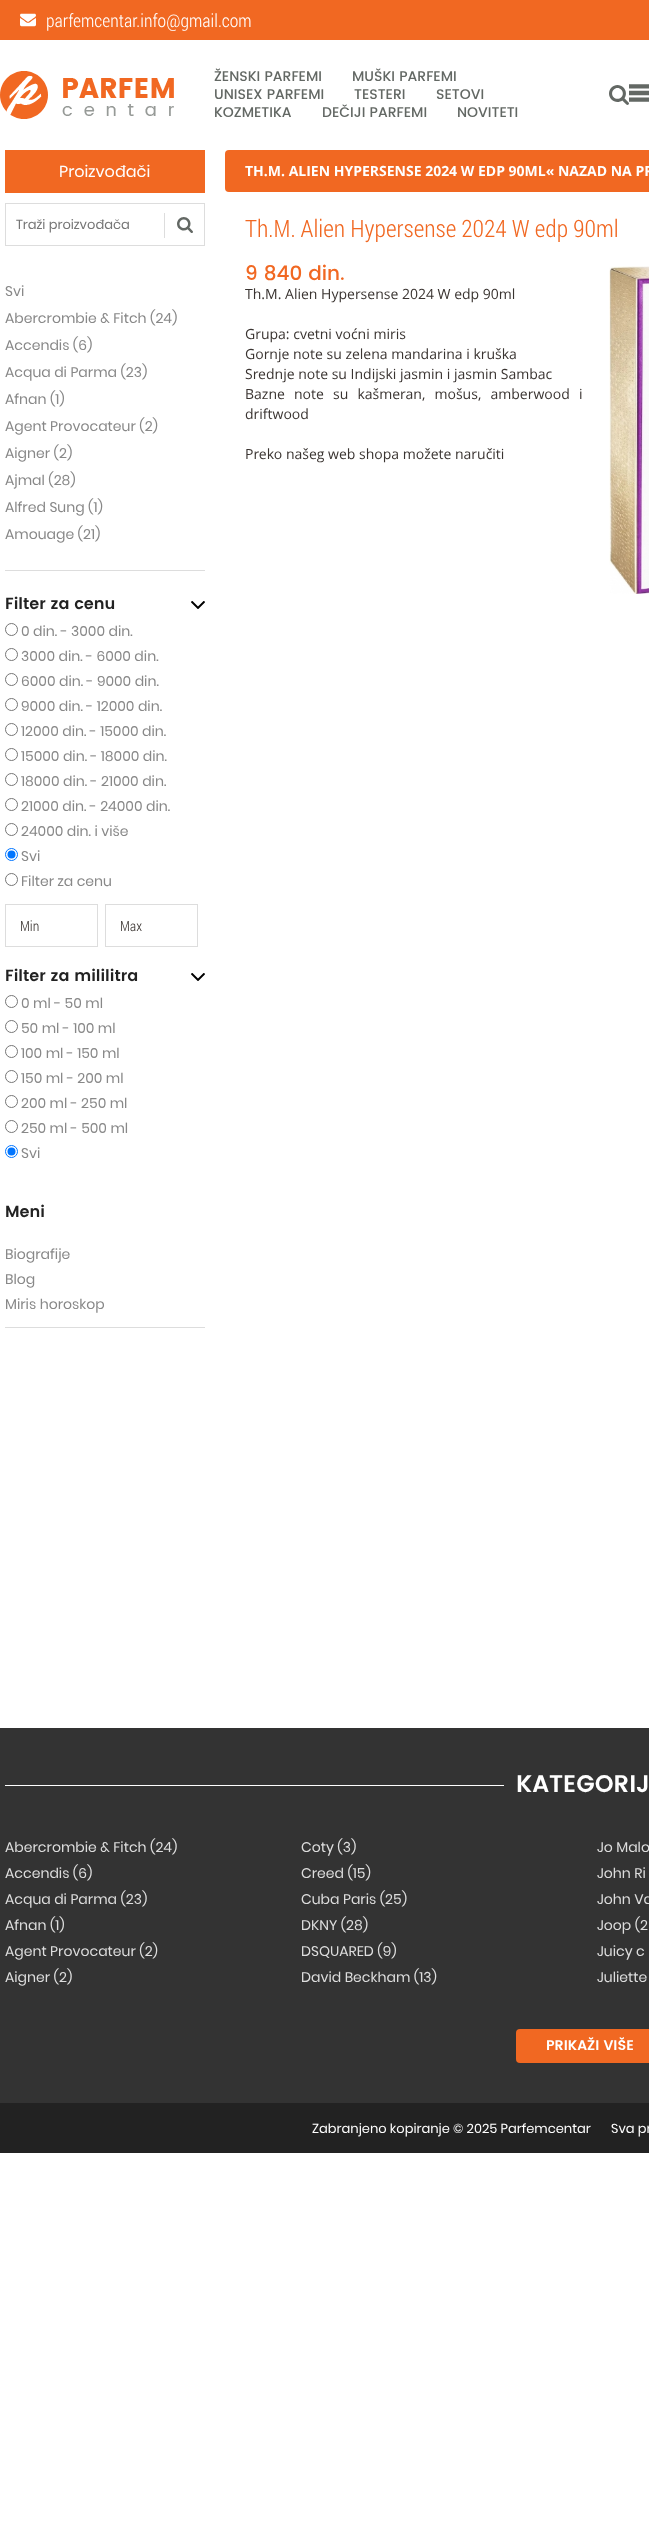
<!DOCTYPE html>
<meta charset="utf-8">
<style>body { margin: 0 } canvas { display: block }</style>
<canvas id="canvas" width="649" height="2548"></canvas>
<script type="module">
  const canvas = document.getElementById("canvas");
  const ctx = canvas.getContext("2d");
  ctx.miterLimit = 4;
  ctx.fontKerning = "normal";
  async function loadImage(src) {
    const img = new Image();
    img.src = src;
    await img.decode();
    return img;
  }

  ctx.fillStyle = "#ffffff";
  ctx.fillRect(0, 0, 649, 2548);
  ctx.fillStyle = "#f16822";
  ctx.fillRect(0, 0, 649, 40);
  ctx.drawImage(await loadImage("img1.png"), 20, 13, 16, 14);
  ctx.font = "300 18px Roboto Condensed";
  ctx.fillStyle = "#ffffff";
  ctx.fillText("parfemcentar.info@gmail.com", 46, 27);
  ctx.drawImage(await loadImage("img2.png"), 0, 71, 174, 48);
  ctx.font = "500 14px Poppins";
  ctx.fillStyle = "#636864";
  ctx.fillText("ŽENSKI PARFEMI", 214, 81);
  ctx.fillText("MUŠKI PARFEMI", 352, 81);
  ctx.fillText("UNISEX PARFEMI", 214, 99);
  ctx.fillText("TESTERI", 354, 99);
  ctx.fillText("SETOVI", 436, 99);
  ctx.fillText("KOZMETIKA", 214, 117);
  ctx.fillText("DEČIJI PARFEMI", 322, 117);
  ctx.fillText("NOVITETI", 457, 117);
  ctx.drawImage(await loadImage("img3.png"), 609, 85, 20, 20);
  ctx.drawImage(await loadImage("img4.png"), 629, 84, 20, 18);
  ctx.fillStyle = "#f16822";
  ctx.fillRect(5, 150, 200, 43);
  ctx.font = "16px Poppins";
  ctx.fillStyle = "#ffffff";
  ctx.fillText("Proizvođači", 59, 177);
  ctx.strokeStyle = "#dddddd";
  ctx.strokeRect(5.5, 203.5, 199, 42);
  ctx.font = "13px Poppins";
  ctx.fillStyle = "#757575";
  ctx.fillText("Traži proizvođača", 16, 229);
  ctx.fillStyle = "#dddddd";
  ctx.fillRect(164, 213, 1, 25);
  ctx.drawImage(await loadImage("img5.png"), 177, 217, 16, 16);
  ctx.fillRect(5, 570, 200, 1);
  ctx.font = "14px Poppins";
  ctx.fillStyle = "#888888";
  ctx.fillText("Svi", 5, 296);
  ctx.fillText("Abercrombie & Fitch (24)", 5, 323);
  ctx.fillText("Accendis (6)", 5, 350);
  ctx.fillText("Acqua di Parma (23)", 5, 377);
  ctx.fillText("Afnan (1)", 5, 404);
  ctx.fillText("Agent Provocateur (2)", 5, 431);
  ctx.fillText("Aigner (2)", 5, 458);
  ctx.fillText("Ajmal (28)", 5, 485);
  ctx.fillText("Alfred Sung (1)", 5, 512);
  ctx.fillText("Amouage (21)", 5, 539);
  ctx.font = "600 16px Poppins";
  ctx.fillStyle = "#222222";
  ctx.fillText("Filter za cenu", 5, 609);
  ctx.drawImage(await loadImage("img6.png"), 191, 601, 14, 8);
  ctx.beginPath();
  ctx.arc(11.5, 629.5, 6, 0, Math.PI * 2);
  ctx.strokeStyle = "#767676";
  ctx.stroke();
  ctx.font = "14px Poppins";
  ctx.fillStyle = "#888888";
  ctx.fillText("0 din. - 3000 din.", 21, 636);
  ctx.beginPath();
  ctx.arc(11.5, 654.5, 6, 0, Math.PI * 2);
  ctx.stroke();
  ctx.fillText("3000 din. - 6000 din.", 21, 661);
  ctx.beginPath();
  ctx.arc(11.5, 679.5, 6, 0, Math.PI * 2);
  ctx.stroke();
  ctx.fillText("6000 din. - 9000 din.", 21, 686);
  ctx.beginPath();
  ctx.arc(11.5, 704.5, 6, 0, Math.PI * 2);
  ctx.stroke();
  ctx.fillText("9000 din. - 12000 din.", 21, 711);
  ctx.beginPath();
  ctx.arc(11.5, 729.5, 6, 0, Math.PI * 2);
  ctx.stroke();
  ctx.fillText("12000 din. - 15000 din.", 21, 736);
  ctx.beginPath();
  ctx.arc(11.5, 754.5, 6, 0, Math.PI * 2);
  ctx.stroke();
  ctx.fillText("15000 din. - 18000 din.", 21, 761);
  ctx.beginPath();
  ctx.arc(11.5, 779.5, 6, 0, Math.PI * 2);
  ctx.stroke();
  ctx.fillText("18000 din. - 21000 din.", 21, 786);
  ctx.beginPath();
  ctx.arc(11.5, 804.5, 6, 0, Math.PI * 2);
  ctx.stroke();
  ctx.fillText("21000 din. - 24000 din.", 21, 811);
  ctx.beginPath();
  ctx.arc(11.5, 829.5, 6, 0, Math.PI * 2);
  ctx.stroke();
  ctx.fillText("24000 din. i više", 21, 836);
  ctx.beginPath();
  ctx.arc(11.5, 854.5, 6, 0, Math.PI * 2);
  ctx.strokeStyle = "#0075ff";
  ctx.stroke();
  ctx.fillStyle = "#0075ff";
  ctx.beginPath();
  ctx.arc(11.5, 854.5, 4, 0, Math.PI * 2);
  ctx.fill();
  ctx.fillStyle = "#888888";
  ctx.fillText("Svi", 21, 861);
  ctx.beginPath();
  ctx.arc(11.5, 879.5, 6, 0, Math.PI * 2);
  ctx.strokeStyle = "#767676";
  ctx.stroke();
  ctx.fillText("Filter za cenu", 21, 886);
  ctx.strokeStyle = "#dddddd";
  ctx.strokeRect(5.5, 904.5, 92, 42);
  ctx.font = "300 14px Roboto Condensed";
  ctx.fillStyle = "#3a3431";
  ctx.fillText("Min", 20, 931);
  ctx.strokeRect(105.5, 904.5, 92, 42);
  ctx.fillText("Max", 120, 931);
  ctx.font = "600 16px Poppins";
  ctx.fillStyle = "#222222";
  ctx.fillText("Filter za mililitra", 5, 981);
  ctx.drawImage(await loadImage("img6.png"), 191, 973, 14, 8);
  ctx.beginPath();
  ctx.arc(11.5, 1001.5, 6, 0, Math.PI * 2);
  ctx.strokeStyle = "#767676";
  ctx.stroke();
  ctx.font = "14px Poppins";
  ctx.fillStyle = "#888888";
  ctx.fillText("0 ml - 50 ml", 21, 1008);
  ctx.beginPath();
  ctx.arc(11.5, 1026.5, 6, 0, Math.PI * 2);
  ctx.stroke();
  ctx.fillText("50 ml - 100 ml", 21, 1033);
  ctx.beginPath();
  ctx.arc(11.5, 1051.5, 6, 0, Math.PI * 2);
  ctx.stroke();
  ctx.fillText("100 ml - 150 ml", 21, 1058);
  ctx.beginPath();
  ctx.arc(11.5, 1076.5, 6, 0, Math.PI * 2);
  ctx.stroke();
  ctx.fillText("150 ml - 200 ml", 21, 1083);
  ctx.beginPath();
  ctx.arc(11.5, 1101.5, 6, 0, Math.PI * 2);
  ctx.stroke();
  ctx.fillText("200 ml - 250 ml", 21, 1108);
  ctx.beginPath();
  ctx.arc(11.5, 1126.5, 6, 0, Math.PI * 2);
  ctx.stroke();
  ctx.fillText("250 ml - 500 ml", 21, 1133);
  ctx.beginPath();
  ctx.arc(11.5, 1151.5, 6, 0, Math.PI * 2);
  ctx.strokeStyle = "#0075ff";
  ctx.stroke();
  ctx.fillStyle = "#0075ff";
  ctx.beginPath();
  ctx.arc(11.5, 1151.5, 4, 0, Math.PI * 2);
  ctx.fill();
  ctx.fillStyle = "#888888";
  ctx.fillText("Svi", 21, 1158);
  ctx.fillStyle = "#dddddd";
  ctx.fillRect(5, 1327, 200, 1);
  ctx.font = "600 16px Poppins";
  ctx.fillStyle = "#222222";
  ctx.fillText("Meni", 5, 1217);
  ctx.font = "14px Poppins";
  ctx.fillStyle = "#888888";
  ctx.fillText("Biografije", 5, 1259);
  ctx.fillText("Blog", 5, 1284);
  ctx.fillText("Miris horoskop", 5, 1309);
  ctx.fillStyle = "#f16822";
  ctx.beginPath();
  ctx.roundRect(225, 150, 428, 42, 4);
  ctx.fill();
  ctx.font = "bold 14px Open Sans";
  ctx.fillStyle = "#ffffff";
  ctx.fillText("TH.M. ALIEN HYPERSENSE 2024 W EDP 90ML« NAZAD NA PR", 245, 176);
  ctx.font = "300 24px Roboto Condensed";
  ctx.fillStyle = "#f16822";
  ctx.fillText("Th.M. Alien Hypersense 2024 W edp 90ml", 245, 237);
  ctx.font = "500 20px Poppins";
  ctx.fillText("9 840 din.", 245, 280);
  ctx.font = "14px Open Sans";
  ctx.fillStyle = "#3a3431";
  ctx.fillText("Th.M. Alien Hypersense 2024 W edp 90ml", 245, 299);
  ctx.fillText("Grupa: cvetni voćni miris", 245, 339);
  ctx.fillText("Gornje note su zelena mandarina i kruška", 245, 359);
  ctx.fillText("Srednje note su Indijski jasmin i jasmin Sambac", 245, 379);
  ctx.wordSpacing = "5.5px";
  ctx.fillText("Bazne note su kašmeran, mošus, amberwood i", 245, 399);
  ctx.wordSpacing = "0px";
  ctx.fillText("driftwood", 245, 419);
  ctx.fillText("Preko našeg web shopa možete naručiti", 245, 459);
  ctx.drawImage(await loadImage("img7.png"), 609, 266, 40, 328);
  ctx.fillStyle = "#333333";
  ctx.fillRect(0, 1728, 649, 375);
  ctx.fillStyle = "#ffffff";
  ctx.fillRect(5, 1785, 499, 1);
  ctx.font = "600 24px Poppins";
  ctx.fillText("KATEGORIJ", 516, 1792);
  ctx.font = "14px Poppins";
  ctx.fillStyle = "#dddddd";
  ctx.fillText("Abercrombie & Fitch (24)", 5, 1852);
  ctx.fillText("Coty (3)", 301, 1852);
  ctx.fillText("Jo Malo", 597, 1852);
  ctx.fillText("Accendis (6)", 5, 1878);
  ctx.fillText("Creed (15)", 301, 1878);
  ctx.fillText("John Ri", 597, 1878);
  ctx.fillText("Acqua di Parma (23)", 5, 1904);
  ctx.fillText("Cuba Paris (25)", 301, 1904);
  ctx.fillText("John Va", 597, 1904);
  ctx.fillText("Afnan (1)", 5, 1930);
  ctx.fillText("DKNY (28)", 301, 1930);
  ctx.fillText("Joop (2", 597, 1930);
  ctx.fillText("Agent Provocateur (2)", 5, 1956);
  ctx.fillText("DSQUARED (9)", 301, 1956);
  ctx.fillText("Juicy c", 597, 1956);
  ctx.fillText("Aigner (2)", 5, 1982);
  ctx.fillText("David Beckham (13)", 301, 1982);
  ctx.fillText("Juliette", 597, 1982);
  ctx.fillStyle = "#f16822";
  ctx.beginPath();
  ctx.roundRect(516, 2029, 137, 34, 4);
  ctx.fill();
  ctx.font = "600 14px Poppins";
  ctx.fillStyle = "#ffffff";
  ctx.fillText("PRIKAŽI VIŠE", 546, 2050);
  ctx.fillStyle = "#222222";
  ctx.fillRect(0, 2103, 649, 50);
  ctx.font = "13px Poppins";
  ctx.fillStyle = "#ffffff";
  ctx.fillText("Zabranjeno kopiranje © 2025 Parfemcentar", 312, 2133);
  ctx.fillText("Sva pr", 611, 2133);
</script>
